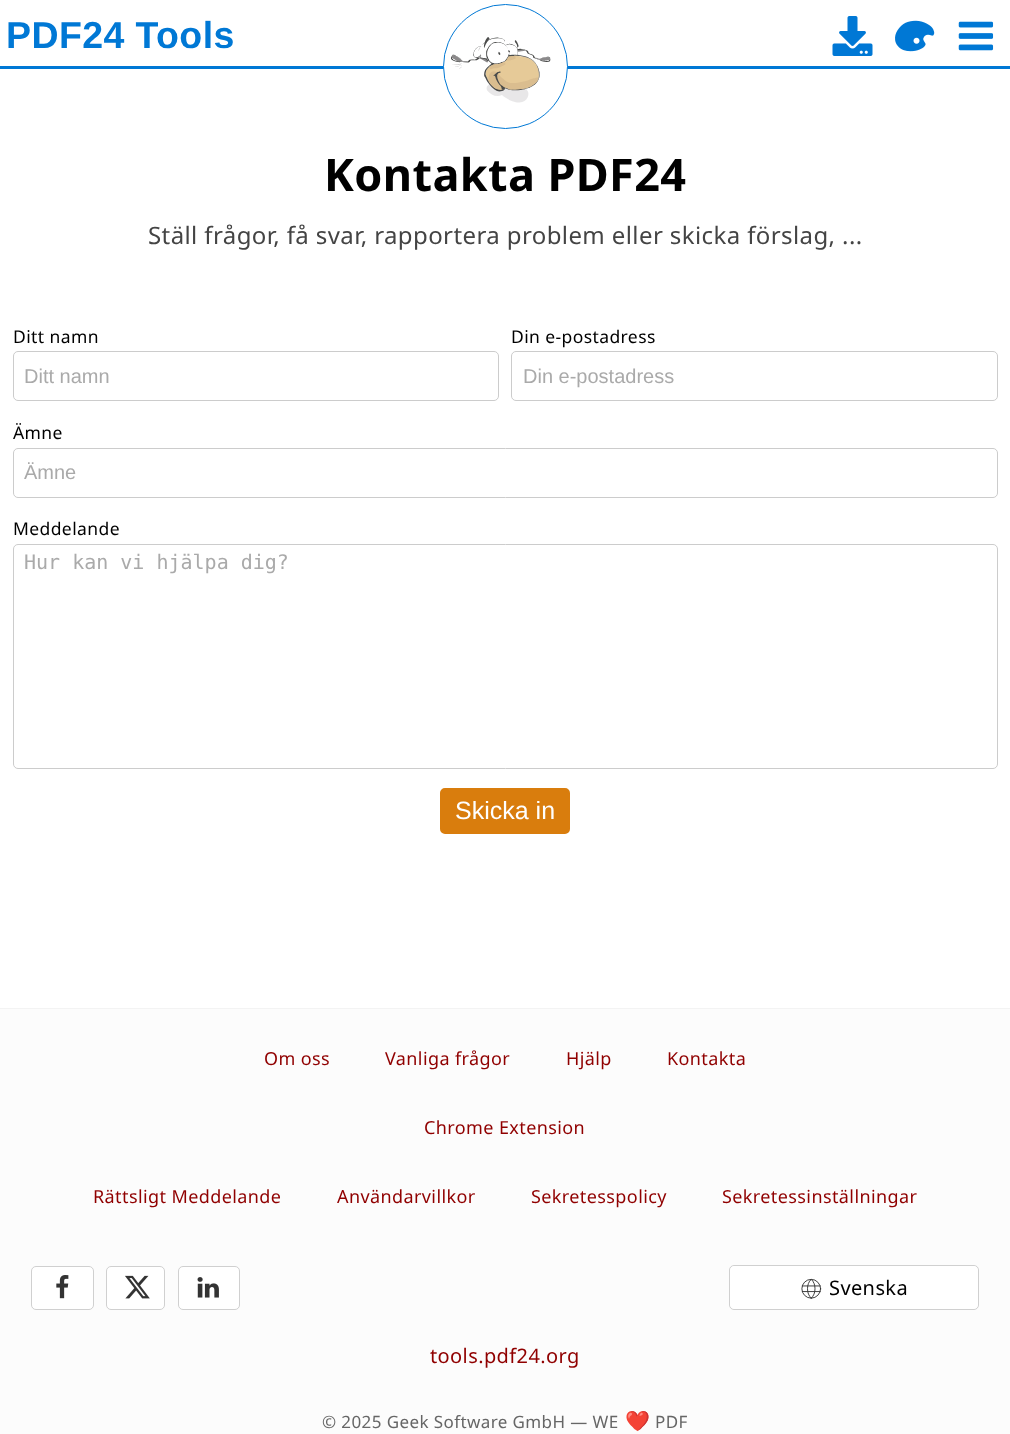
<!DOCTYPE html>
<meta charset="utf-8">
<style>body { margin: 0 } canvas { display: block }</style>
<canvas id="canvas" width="1010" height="1434"></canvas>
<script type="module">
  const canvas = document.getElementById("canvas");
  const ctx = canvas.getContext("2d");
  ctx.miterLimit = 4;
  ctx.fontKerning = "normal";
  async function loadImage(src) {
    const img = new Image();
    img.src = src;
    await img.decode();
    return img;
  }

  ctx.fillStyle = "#ffffff";
  ctx.fillRect(0, 0, 1010, 1434);
  ctx.fillStyle = "#0078d5";
  ctx.fillRect(0, 66, 1010, 3);
  ctx.letterSpacing = "0.4px";
  ctx.font = "bold 37.5px Liberation Sans";
  ctx.fillText("PDF24 Tools", 6, 48);
  ctx.fillStyle = "#ffffff";
  ctx.beginPath();
  ctx.arc(505.5, 66.5, 62, 0, Math.PI * 2);
  ctx.fill();
  ctx.strokeStyle = "#0078d5";
  ctx.stroke();
  ctx.drawImage(await loadImage("img1.png"), 451, 37, 100, 66);
  ctx.drawImage(await loadImage("img2.png"), 832, 16, 41, 40);
  ctx.drawImage(await loadImage("img3.png"), 895, 20, 40, 32);
  ctx.drawImage(await loadImage("img4.png"), 958, 21, 36, 30);
  ctx.font = "bold 45px Noto Sans";
  ctx.fillStyle = "#000000";
  ctx.fillText("Kontakta PDF24", 324, 191);
  ctx.font = "24px Noto Sans";
  ctx.fillStyle = "#444444";
  ctx.fillText("Ställ frågor, få svar, rapportera problem eller skicka förslag, ...", 148, 244);
  ctx.font = "17.5px Noto Sans";
  ctx.fillStyle = "#000000";
  ctx.fillText("Ditt namn", 13, 343);
  ctx.beginPath();
  ctx.roundRect(13.5, 351.5, 485, 49, 4.5);
  ctx.strokeStyle = "#cccccc";
  ctx.stroke();
  ctx.letterSpacing = "0px";
  ctx.font = "20px Liberation Sans";
  ctx.fillStyle = "#aaaaaa";
  ctx.fillText("Ditt namn", 24, 383);
  ctx.letterSpacing = "0.4px";
  ctx.font = "17.5px Noto Sans";
  ctx.fillStyle = "#000000";
  ctx.fillText("Din e-postadress", 511, 343);
  ctx.beginPath();
  ctx.roundRect(511.5, 351.5, 486, 49, 4.5);
  ctx.stroke();
  ctx.letterSpacing = "0px";
  ctx.font = "20px Liberation Sans";
  ctx.fillStyle = "#aaaaaa";
  ctx.fillText("Din e-postadress", 523, 383);
  ctx.letterSpacing = "0.4px";
  ctx.font = "17.5px Noto Sans";
  ctx.fillStyle = "#000000";
  ctx.fillText("Ämne", 13, 439);
  ctx.beginPath();
  ctx.roundRect(13.5, 448.5, 984, 49, 4.5);
  ctx.stroke();
  ctx.letterSpacing = "0px";
  ctx.font = "20px Liberation Sans";
  ctx.fillStyle = "#aaaaaa";
  ctx.fillText("Ämne", 24, 479);
  ctx.letterSpacing = "0.4px";
  ctx.font = "17.5px Noto Sans";
  ctx.fillStyle = "#000000";
  ctx.fillText("Meddelande", 13, 535);
  ctx.beginPath();
  ctx.roundRect(13.5, 544.5, 984, 224, 4.5);
  ctx.stroke();
  ctx.letterSpacing = "0px";
  ctx.font = "20px DejaVu Sans Mono";
  ctx.fillStyle = "#aaaaaa";
  ctx.fillText("Hur kan vi hjälpa dig?", 24, 569);
  ctx.fillStyle = "#d97d0d";
  ctx.beginPath();
  ctx.roundRect(441.5, 789.5, 127, 43, 3.5);
  ctx.fill();
  ctx.strokeStyle = "#d97d0d";
  ctx.lineWidth = 3;
  ctx.stroke();
  ctx.font = "25px Liberation Sans";
  ctx.fillStyle = "#ffffff";
  ctx.fillText("Skicka in", 455, 819);
  ctx.fillStyle = "#fcfcfc";
  ctx.fillRect(0, 1009, 1010, 425);
  ctx.fillStyle = "#f3f3f3";
  ctx.fillRect(0, 1008, 1010, 1);
  ctx.letterSpacing = "0.4px";
  ctx.font = "18px Noto Sans";
  ctx.fillStyle = "#900000";
  ctx.fillText("Om oss", 264, 1065);
  ctx.fillText("Vanliga frågor", 385, 1065);
  ctx.fillText("Hjälp", 566, 1065);
  ctx.fillText("Kontakta", 667, 1065);
  ctx.fillText("Chrome Extension", 424, 1134);
  ctx.fillText("Rättsligt Meddelande", 93, 1203);
  ctx.fillText("Användarvillkor", 337, 1203);
  ctx.fillText("Sekretesspolicy", 531, 1203);
  ctx.fillText("Sekretessinställningar", 722, 1203);
  ctx.fillStyle = "#ffffff";
  ctx.beginPath();
  ctx.roundRect(31.5, 1266.5, 62, 43, 4.5);
  ctx.fill();
  ctx.strokeStyle = "#d0d0d0";
  ctx.lineWidth = 1;
  ctx.stroke();
  ctx.drawImage(await loadImage("img5.png"), 56, 1275, 13, 24);
  ctx.beginPath();
  ctx.roundRect(106.5, 1266.5, 58, 43, 4.5);
  ctx.fill();
  ctx.stroke();
  ctx.drawImage(await loadImage("img6.png"), 125, 1275, 25, 24);
  ctx.beginPath();
  ctx.roundRect(178.5, 1266.5, 61, 43, 4.5);
  ctx.fill();
  ctx.stroke();
  ctx.drawImage(await loadImage("img7.png"), 197, 1277, 22, 21);
  ctx.beginPath();
  ctx.roundRect(729.5, 1265.5, 249, 44, 4.5);
  ctx.stroke();
  ctx.beginPath();
  ctx.roundRect(730, 1266, 248, 43, 5);
  ctx.fill();
  ctx.drawImage(await loadImage("img8.png"), 801, 1278, 21, 21);
  ctx.font = "20px Noto Sans";
  ctx.fillStyle = "#000000";
  ctx.fillText("Svenska", 829, 1295);
  ctx.fillStyle = "#900000";
  ctx.fillText("tools.pdf24.org", 430, 1363);
  ctx.font = "17px Noto Sans";
  ctx.fillStyle = "#666666";
  ctx.fillText("© 2025 Geek Software GmbH — WE", 322, 1428);
  ctx.font = "20px Noto Color Emoji";
  ctx.fillStyle = "#ff0000";
  ctx.fillText("❤️", 625, 1428);
  ctx.font = "17px Noto Sans";
  ctx.fillStyle = "#666666";
  ctx.fillText("PDF", 655, 1428);
</script>
